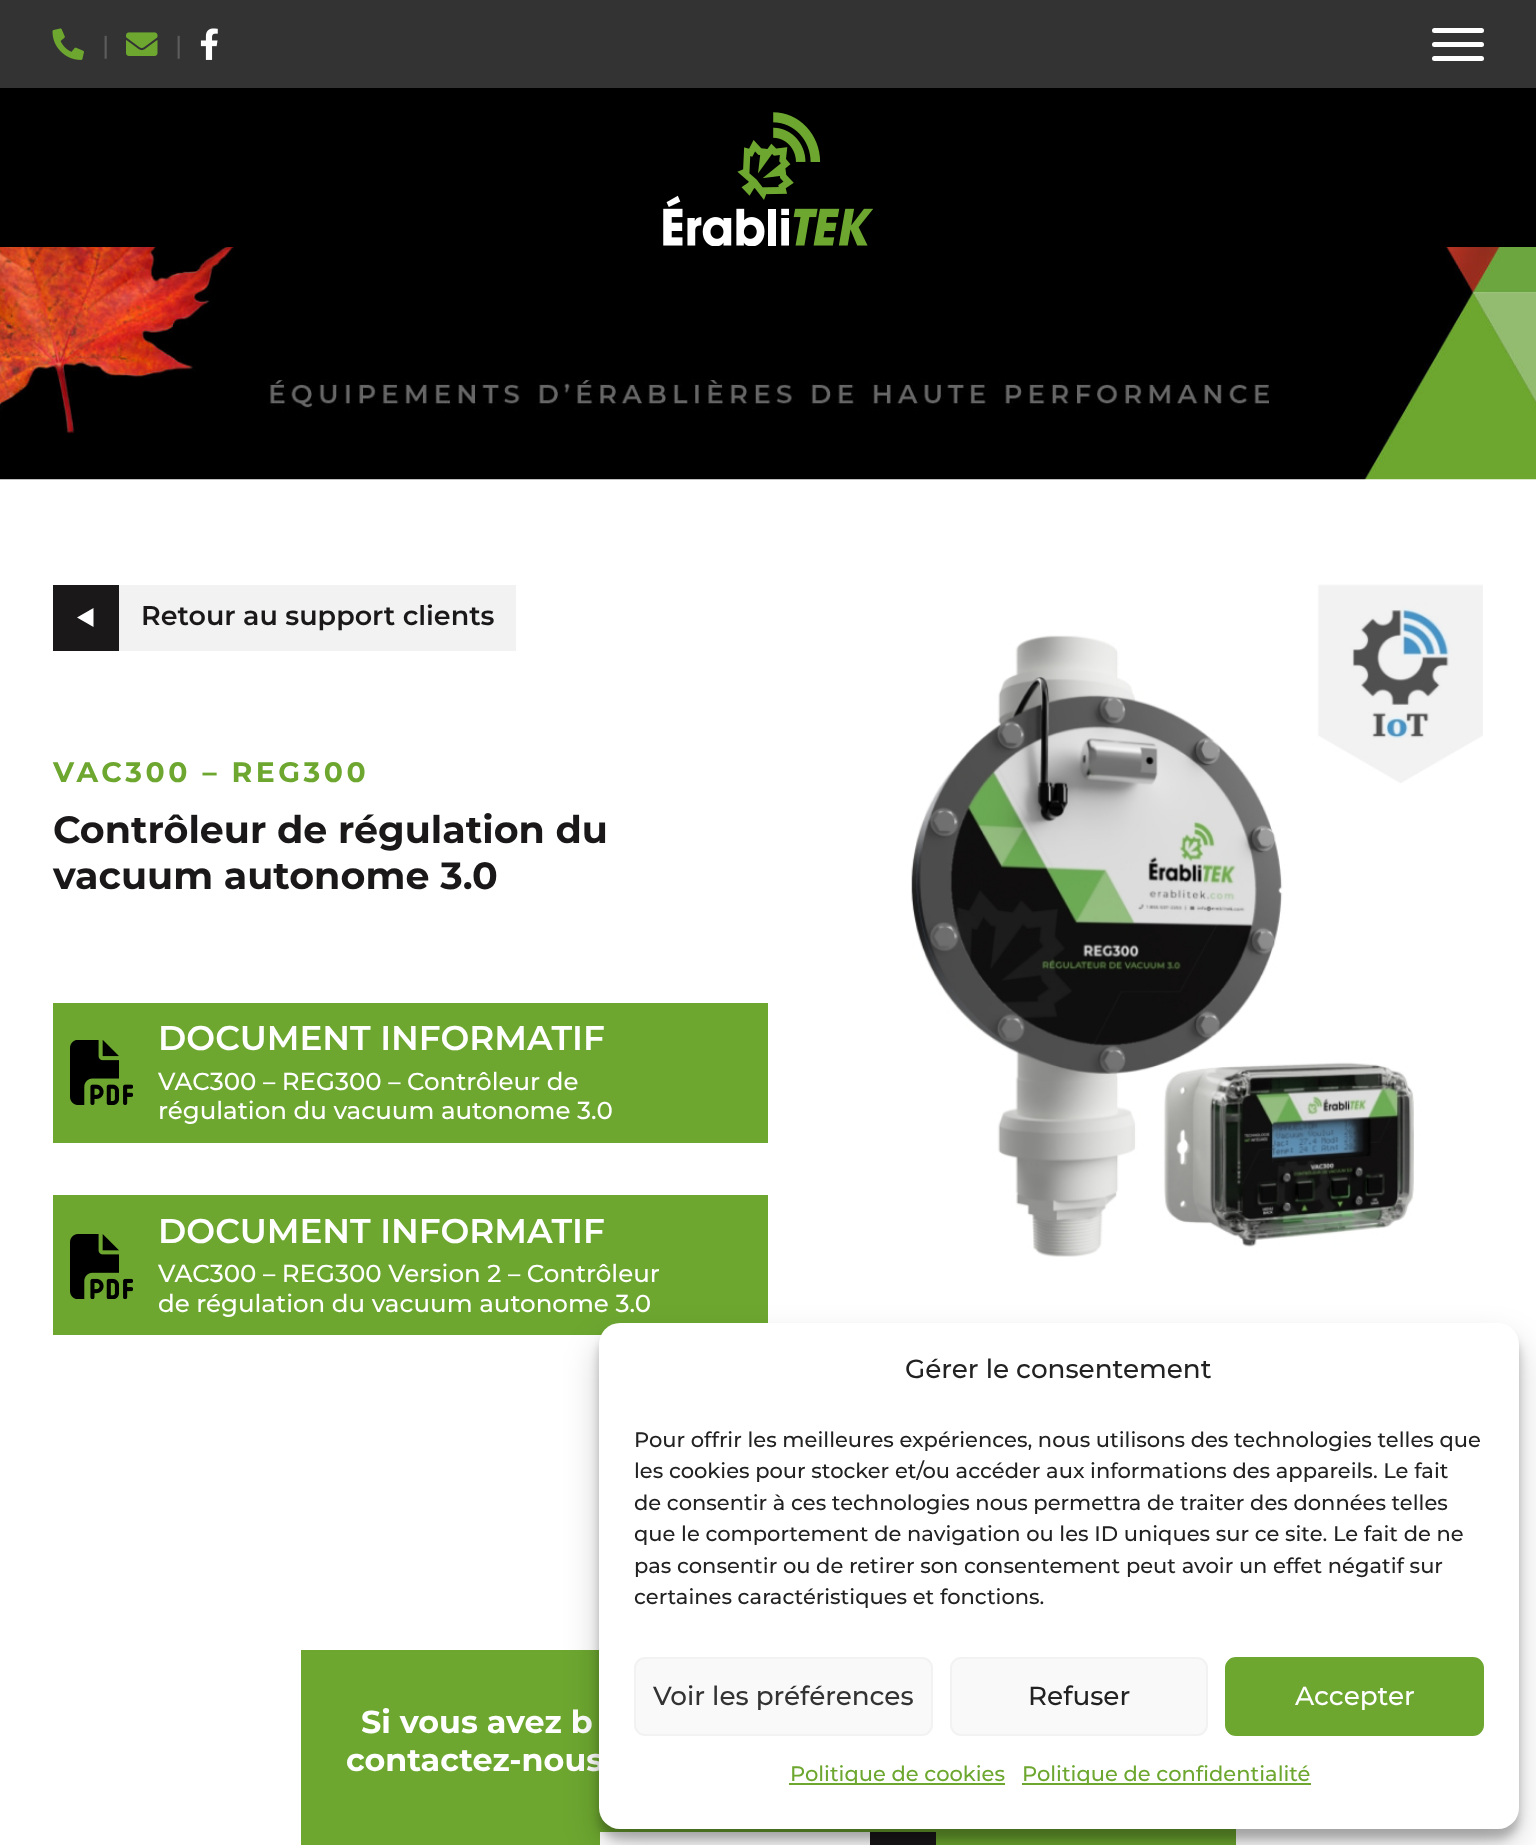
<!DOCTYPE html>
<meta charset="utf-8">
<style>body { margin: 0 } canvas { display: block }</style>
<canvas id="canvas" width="1536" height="1845"></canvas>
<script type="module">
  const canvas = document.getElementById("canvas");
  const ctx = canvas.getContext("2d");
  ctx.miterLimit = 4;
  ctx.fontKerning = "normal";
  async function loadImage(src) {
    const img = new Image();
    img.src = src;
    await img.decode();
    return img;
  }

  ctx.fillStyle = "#ffffff";
  ctx.fillRect(0, 0, 1536, 1845);
  ctx.fillStyle = "#333333";
  ctx.fillRect(0, 0, 1536, 88);
  ctx.drawImage(await loadImage("img1.png"), 52, 28, 32, 32);
  ctx.font = "500 24.5px Montserrat";
  ctx.fillStyle = "#5c5c5c";
  ctx.fillText("|", 102, 54);
  ctx.drawImage(await loadImage("img2.png"), 126, 32, 32, 24);
  ctx.fillText("|", 175, 54);
  ctx.drawImage(await loadImage("img3.png"), 200, 28, 18, 32);
  ctx.fillStyle = "#ffffff";
  ctx.beginPath();
  ctx.roundRect(1432, 42, 52, 5, 2.5);
  ctx.fill();
  ctx.beginPath();
  ctx.roundRect(1432, 28, 52, 5, 2.5);
  ctx.fill();
  ctx.beginPath();
  ctx.roundRect(1432, 56, 52, 5, 2.5);
  ctx.fill();
  ctx.fillStyle = "#000000";
  ctx.fillRect(0, 88, 1536, 159);
  ctx.drawImage(await loadImage("img4.png"), 663, 112, 210, 134);
  ctx.drawImage(await loadImage("img5.png"), 0, 247, 1536, 233);
  ctx.fillStyle = "#f2f2f2";
  ctx.fillRect(119, 585, 397, 66);
  ctx.fillStyle = "#1a1818";
  ctx.fillRect(53, 585, 66, 66);
  ctx.fillStyle = "#ffffff";
  ctx.beginPath();
  ctx.moveTo(93.5, 608);
  ctx.lineTo(93.5, 627);
  ctx.lineTo(77, 617.5);
  ctx.closePath();
  ctx.fill();
  ctx.font = "600 27px Montserrat";
  ctx.fillStyle = "#1a1818";
  ctx.fillText("Retour au support clients", 141, 625);
  ctx.letterSpacing = "3.5px";
  ctx.font = "bold 28.25px Montserrat";
  ctx.fillStyle = "#6da730";
  ctx.fillText("VAC300 – REG300", 53, 782);
  ctx.letterSpacing = "0px";
  ctx.font = "bold 38px Montserrat";
  ctx.fillStyle = "#1a1818";
  ctx.fillText("Contrôleur de régulation du", 53, 843);
  ctx.fillText("vacuum autonome 3.0", 53, 889);
  ctx.fillStyle = "#6da730";
  ctx.fillRect(53, 1003, 715, 140);
  ctx.drawImage(await loadImage("img6.png"), 70, 1040, 63, 65);
  ctx.font = "600 34.25px Montserrat";
  ctx.fillStyle = "#ffffff";
  ctx.fillText("DOCUMENT INFORMATIF", 158, 1050);
  ctx.font = "500 24.5px Montserrat";
  ctx.fillText("VAC300 – REG300 – Contrôleur de", 158, 1090);
  ctx.fillText("régulation du vacuum autonome 3.0", 158, 1119);
  ctx.fillStyle = "#6da730";
  ctx.fillRect(53, 1195, 715, 140);
  ctx.drawImage(await loadImage("img7.png"), 70, 1234, 63, 65);
  ctx.font = "600 34.25px Montserrat";
  ctx.fillStyle = "#ffffff";
  ctx.fillText("DOCUMENT INFORMATIF", 158, 1243);
  ctx.font = "500 24.5px Montserrat";
  ctx.fillText("VAC300 – REG300 Version 2 – Contrôleur", 158, 1282);
  ctx.fillText("de régulation du vacuum autonome 3.0", 158, 1312);
  ctx.drawImage(await loadImage("img8.png"), 911, 584, 572, 673);
  ctx.fillStyle = "#6da730";
  ctx.fillRect(301, 1650, 935, 195);
  ctx.font = "bold 31.75px Montserrat";
  ctx.fillStyle = "#ffffff";
  ctx.fillText("Si vous avez b", 361, 1733);
  ctx.fillText("contactez-nous", 346, 1771);
  ctx.fillRect(600, 1832, 270, 13);
  ctx.fillStyle = "#1a1818";
  ctx.fillRect(870, 1832, 66, 13);
  ctx.fillStyle = "rgba(0, 0, 0, 0.23)";
  ctx.filter = "blur(5px)";
  ctx.beginPath();
  ctx.roundRect(599, 1334, 920, 505, 21);
  ctx.fill();
  ctx.filter = "none";
  ctx.fillStyle = "rgba(0, 0, 0, 0.19)";
  ctx.filter = "blur(17.5px)";
  ctx.beginPath();
  ctx.roundRect(599, 1341, 920, 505, 21);
  ctx.fill();
  ctx.filter = "none";
  ctx.fillStyle = "#ffffff";
  ctx.beginPath();
  ctx.roundRect(599, 1323, 920, 506, 21);
  ctx.fill();
  ctx.font = "500 26.25px Montserrat";
  ctx.fillStyle = "#222222";
  ctx.fillText("Gérer le consentement", 905, 1378);
  ctx.font = "500 21px Montserrat";
  ctx.fillText("Pour offrir les meilleures expériences, nous utilisons des technologies telles que", 634, 1447);
  ctx.fillText("les cookies pour stocker et/ou accéder aux informations des appareils. Le fait", 634, 1478);
  ctx.fillText("de consentir à ces technologies nous permettra de traiter des données telles", 634, 1510);
  ctx.fillText("que le comportement de navigation ou les ID uniques sur ce site. Le fait de ne", 634, 1541);
  ctx.fillText("pas consentir ou de retirer son consentement peut avoir un effet négatif sur", 634, 1573);
  ctx.fillText("certaines caractéristiques et fonctions.", 634, 1604);
  ctx.fillStyle = "#f9f9f9";
  ctx.beginPath();
  ctx.roundRect(635, 1658, 297, 77, 10);
  ctx.fill();
  ctx.strokeStyle = "#f2f2f2";
  ctx.lineWidth = 2;
  ctx.stroke();
  ctx.font = "500 26.25px Montserrat";
  ctx.fillStyle = "#333333";
  ctx.fillText("Voir les préférences", 653, 1705);
  ctx.fillStyle = "#f9f9f9";
  ctx.beginPath();
  ctx.roundRect(951, 1658, 256, 77, 10);
  ctx.fill();
  ctx.stroke();
  ctx.fillStyle = "#222222";
  ctx.fillText("Refuser", 1028, 1705);
  ctx.fillStyle = "#6da730";
  ctx.beginPath();
  ctx.roundRect(1226, 1658, 257, 77, 10);
  ctx.fill();
  ctx.strokeStyle = "#6da730";
  ctx.stroke();
  ctx.fillStyle = "#ffffff";
  ctx.fillText("Accepter", 1295, 1705);
  ctx.fillStyle = "#6da730";
  ctx.fillRect(789, 1783, 216, 2);
  ctx.font = "500 21px Montserrat";
  ctx.fillText("Politique de cookies", 790, 1781);
  ctx.fillRect(1022, 1783, 289, 2);
  ctx.fillText("Politique de confidentialité", 1022, 1781);
</script>
